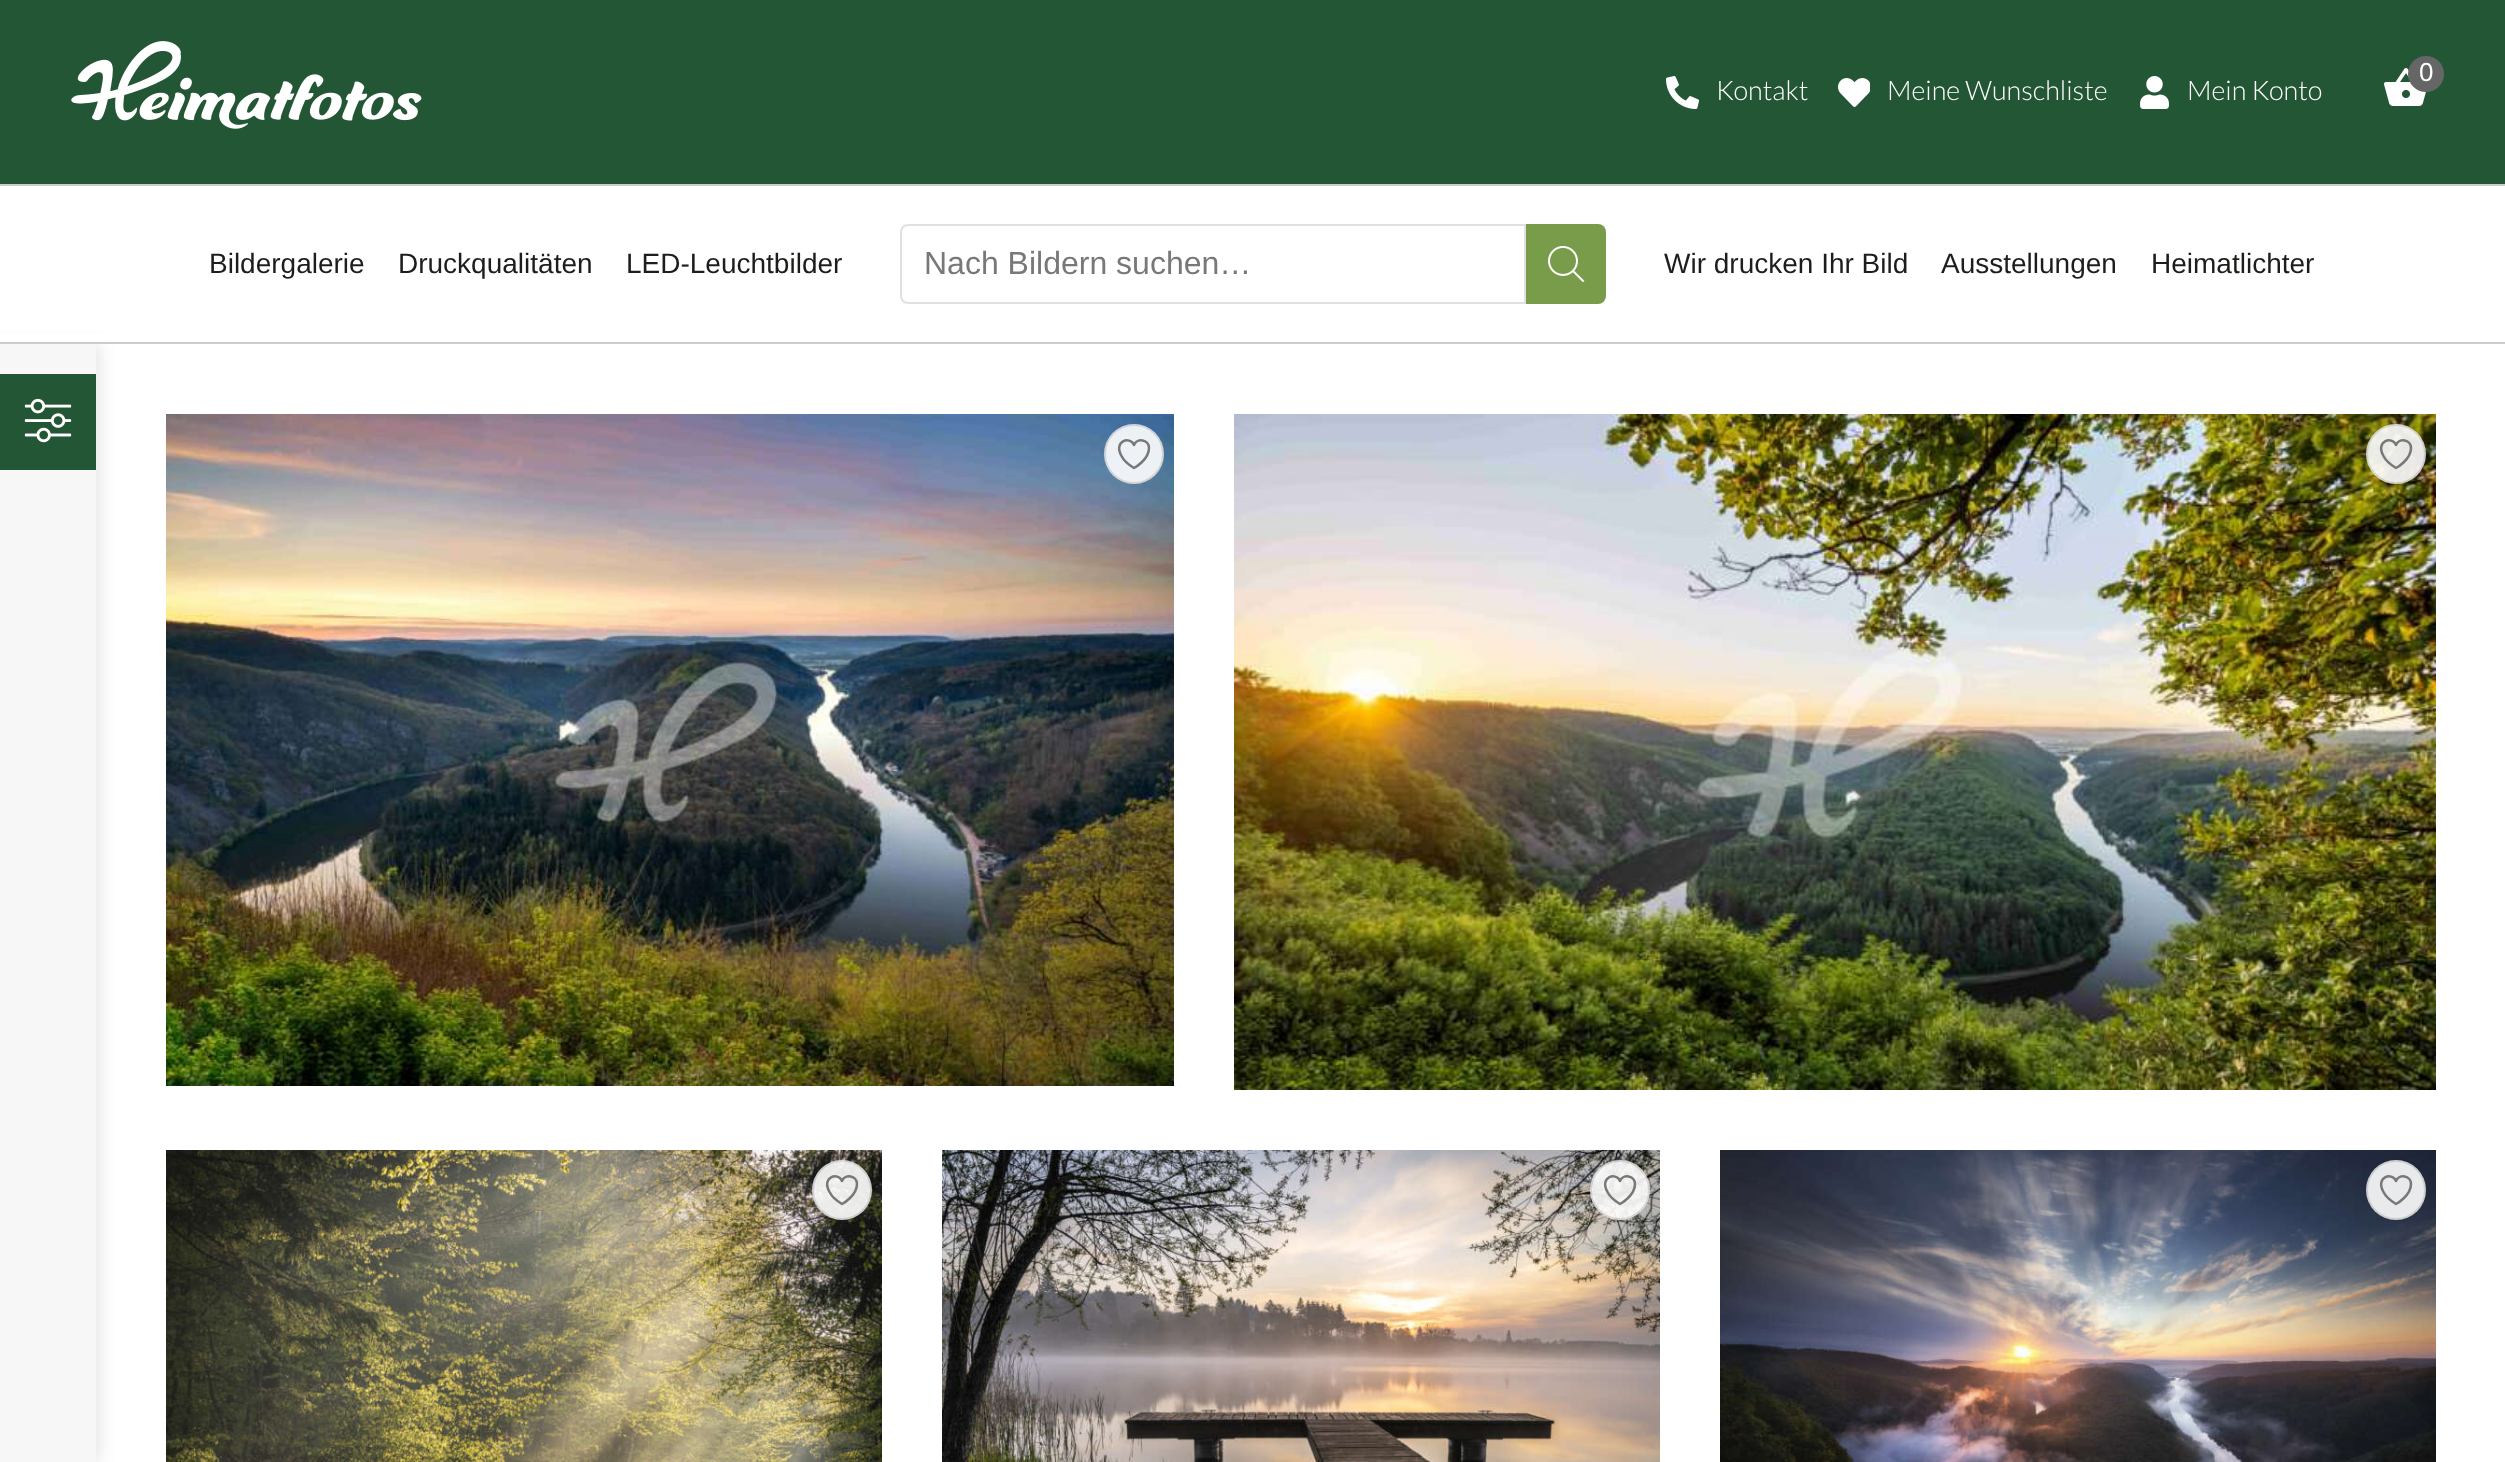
<!DOCTYPE html>
<meta charset="utf-8">
<style>body { margin: 0 } canvas { display: block }</style>
<canvas id="canvas" width="2505" height="1462"></canvas>
<script type="module">
  const canvas = document.getElementById("canvas");
  const ctx = canvas.getContext("2d");
  ctx.miterLimit = 4;
  ctx.fontKerning = "normal";
  async function loadImage(src) {
    const img = new Image();
    img.src = src;
    await img.decode();
    return img;
  }

  ctx.fillStyle = "#ffffff";
  ctx.fillRect(0, 0, 2505, 1462);
  ctx.fillStyle = "rgba(0, 0, 0, 0.1)";
  ctx.filter = "blur(8px)";
  ctx.beginPath();
  ctx.rect(-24, 344, 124, 1118);
  ctx.fill();
  ctx.filter = "none";
  ctx.fillStyle = "#ffffff";
  ctx.fillRect(0, 334, 105, 8);
  ctx.fillStyle = "#235635";
  ctx.fillRect(0, 0, 2505, 184);
  ctx.drawImage(await loadImage("img1.png"), 71, 41, 351, 88);
  ctx.drawImage(await loadImage("img2.png"), 2384, 68, 43, 38);
  ctx.fillStyle = "#666666";
  ctx.beginPath();
  ctx.arc(2426, 74, 18, 0, Math.PI * 2);
  ctx.fill();
  ctx.font = "26px Liberation Sans";
  ctx.fillStyle = "#ffffff";
  ctx.fillText("0", 2419, 81);
  ctx.drawImage(await loadImage("img3.png"), 1666, 76, 33, 33);
  ctx.font = "300 27px Lato";
  ctx.fillText("Kontakt", 1716, 100);
  ctx.drawImage(await loadImage("img4.png"), 1838, 78, 32, 29);
  ctx.fillText("Meine Wunschliste", 1887, 100);
  ctx.drawImage(await loadImage("img5.png"), 2140, 76, 29, 33);
  ctx.fillText("Mein Konto", 2187, 100);
  ctx.fillStyle = "#cccccc";
  ctx.fillRect(0, 184, 2505, 2);
  ctx.fillRect(0, 342, 2505, 2);
  ctx.font = "28px Liberation Sans";
  ctx.fillStyle = "#1d1d1b";
  ctx.fillText("Bildergalerie", 209, 273);
  ctx.fillText("Druckqualitäten", 398, 273);
  ctx.fillText("LED-Leuchtbilder", 626, 273);
  ctx.beginPath();
  ctx.roundRect(901, 225, 624, 78, [7, 0, 0, 7]);
  ctx.strokeStyle = "#e0e0e0";
  ctx.lineWidth = 2;
  ctx.stroke();
  ctx.font = "32px Liberation Sans";
  ctx.fillStyle = "#787878";
  ctx.fillText("Nach Bildern suchen…", 924, 274);
  ctx.fillStyle = "#799c4b";
  ctx.beginPath();
  ctx.roundRect(1526, 224, 80, 80, [0, 8, 8, 0]);
  ctx.fill();
  ctx.drawImage(await loadImage("img6.png"), 1548, 246, 37, 36);
  ctx.font = "28px Liberation Sans";
  ctx.fillStyle = "#1d1d1b";
  ctx.fillText("Wir drucken Ihr Bild", 1664, 273);
  ctx.fillText("Ausstellungen", 1941, 273);
  ctx.fillText("Heimatlichter", 2151, 273);
  ctx.fillStyle = "#f7f7f7";
  ctx.fillRect(0, 344, 96, 1118);
  ctx.fillStyle = "#235635";
  ctx.fillRect(0, 374, 96, 96);
  ctx.drawImage(await loadImage("img7.png"), 24, 398, 48, 45);
  ctx.drawImage(await loadImage("img8.png"), 166, 414, 1008, 672);
  ctx.fillStyle = "rgba(255, 255, 255, 0.9)";
  ctx.beginPath();
  ctx.arc(1134, 454, 30, 0, Math.PI * 2);
  ctx.fill();
  ctx.beginPath();
  ctx.arc(1134, 454, 29, 0, Math.PI * 2);
  ctx.strokeStyle = "rgba(0, 0, 0, 0.12)";
  ctx.stroke();
  ctx.beginPath();
  ctx.moveTo(1149, 448);
  ctx.bezierCurveTo(1149, 439.5, 1137, 437.5, 1134, 445);
  ctx.bezierCurveTo(1130, 435.5, 1113, 441, 1121.5, 456);
  ctx.bezierCurveTo(1124, 461, 1129, 465, 1134, 468);
  ctx.bezierCurveTo(1134, 468, 1149, 460, 1149, 448);
  ctx.closePath();
  ctx.strokeStyle = "#787878";
  ctx.lineWidth = 2.5;
  ctx.lineCap = "round";
  ctx.lineJoin = "round";
  ctx.stroke();
  ctx.drawImage(await loadImage("img9.png"), 1234, 414, 1202, 676);
  ctx.beginPath();
  ctx.arc(2396, 454, 30, 0, Math.PI * 2);
  ctx.fill();
  ctx.beginPath();
  ctx.arc(2396, 454, 29, 0, Math.PI * 2);
  ctx.strokeStyle = "rgba(0, 0, 0, 0.12)";
  ctx.lineWidth = 2;
  ctx.stroke();
  ctx.beginPath();
  ctx.moveTo(2411, 448);
  ctx.bezierCurveTo(2411, 439.5, 2399, 437.5, 2396, 445);
  ctx.bezierCurveTo(2392, 435.5, 2375, 441, 2383.5, 456);
  ctx.bezierCurveTo(2386, 461, 2391, 465, 2396, 468);
  ctx.bezierCurveTo(2396, 468, 2411, 460, 2411, 448);
  ctx.closePath();
  ctx.strokeStyle = "#787878";
  ctx.lineWidth = 2.5;
  ctx.stroke();
  ctx.drawImage(await loadImage("img10.png"), 166, 1150, 716, 312);
  ctx.beginPath();
  ctx.arc(842, 1190, 30, 0, Math.PI * 2);
  ctx.fill();
  ctx.beginPath();
  ctx.arc(842, 1190, 29, 0, Math.PI * 2);
  ctx.strokeStyle = "rgba(0, 0, 0, 0.12)";
  ctx.lineWidth = 2;
  ctx.stroke();
  ctx.beginPath();
  ctx.moveTo(857, 1184);
  ctx.bezierCurveTo(857, 1175.5, 845, 1173.5, 842, 1181);
  ctx.bezierCurveTo(838, 1171.5, 821, 1177, 829.5, 1192);
  ctx.bezierCurveTo(832, 1197, 837, 1201, 842, 1204);
  ctx.bezierCurveTo(842, 1204, 857, 1196, 857, 1184);
  ctx.closePath();
  ctx.strokeStyle = "#787878";
  ctx.lineWidth = 2.5;
  ctx.stroke();
  ctx.drawImage(await loadImage("img11.png"), 942, 1150, 718, 312);
  ctx.beginPath();
  ctx.arc(1620, 1190, 30, 0, Math.PI * 2);
  ctx.fill();
  ctx.beginPath();
  ctx.arc(1620, 1190, 29, 0, Math.PI * 2);
  ctx.strokeStyle = "rgba(0, 0, 0, 0.12)";
  ctx.lineWidth = 2;
  ctx.stroke();
  ctx.beginPath();
  ctx.moveTo(1635, 1184);
  ctx.bezierCurveTo(1635, 1175.5, 1623, 1173.5, 1620, 1181);
  ctx.bezierCurveTo(1616, 1171.5, 1599, 1177, 1607.5, 1192);
  ctx.bezierCurveTo(1610, 1197, 1615, 1201, 1620, 1204);
  ctx.bezierCurveTo(1620, 1204, 1635, 1196, 1635, 1184);
  ctx.closePath();
  ctx.strokeStyle = "#787878";
  ctx.lineWidth = 2.5;
  ctx.stroke();
  ctx.drawImage(await loadImage("img12.png"), 1720, 1150, 716, 312);
  ctx.beginPath();
  ctx.arc(2396, 1190, 30, 0, Math.PI * 2);
  ctx.fill();
  ctx.beginPath();
  ctx.arc(2396, 1190, 29, 0, Math.PI * 2);
  ctx.strokeStyle = "rgba(0, 0, 0, 0.12)";
  ctx.lineWidth = 2;
  ctx.stroke();
  ctx.beginPath();
  ctx.moveTo(2411, 1184);
  ctx.bezierCurveTo(2411, 1175.5, 2399, 1173.5, 2396, 1181);
  ctx.bezierCurveTo(2392, 1171.5, 2375, 1177, 2383.5, 1192);
  ctx.bezierCurveTo(2386, 1197, 2391, 1201, 2396, 1204);
  ctx.bezierCurveTo(2396, 1204, 2411, 1196, 2411, 1184);
  ctx.closePath();
  ctx.strokeStyle = "#787878";
  ctx.lineWidth = 2.5;
  ctx.stroke();
</script>
